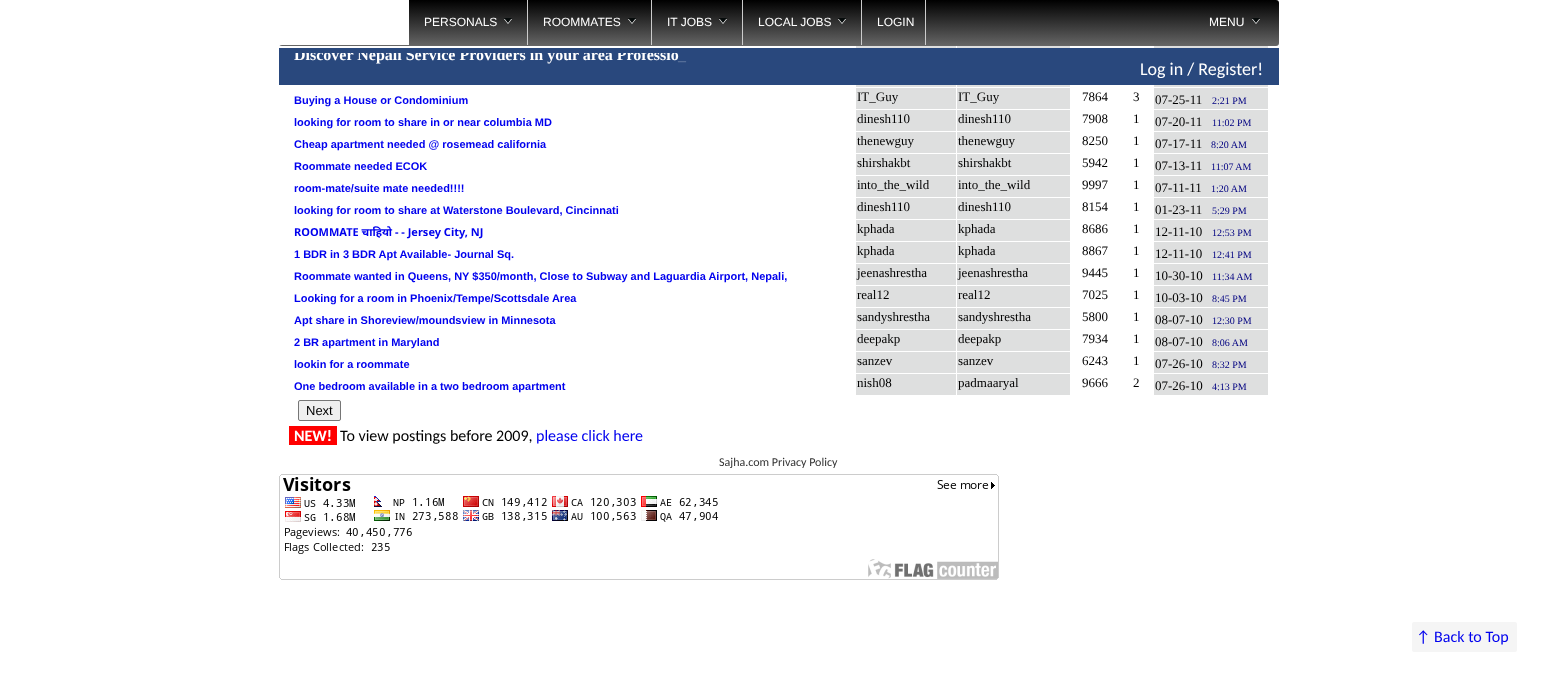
<!DOCTYPE html>
<meta charset="utf-8">
<style>body { margin: 0 } canvas { display: block }</style>
<canvas id="canvas" width="1557" height="677"></canvas>
<script type="module">
  const canvas = document.getElementById("canvas");
  const ctx = canvas.getContext("2d");
  ctx.miterLimit = 4;
  ctx.fontKerning = "normal";
  async function loadImage(src) {
    const img = new Image();
    img.src = src;
    await img.decode();
    return img;
  }
  let gradient;

  ctx.fillStyle = "#ffffff";
  ctx.fillRect(0, 0, 1557, 677);
  gradient = ctx.createLinearGradient(779, 0, 779, 46);
  gradient.addColorStop(0, "#000000");
  gradient.addColorStop(1, "#666666");
  ctx.fillStyle = gradient;
  ctx.beginPath();
  ctx.roundRect(279, 0, 1000, 46, 3);
  ctx.fill();
  ctx.fillStyle = "#ffffff";
  ctx.fillRect(279, 0, 130, 45);
  ctx.fillStyle = "#cccccc";
  ctx.fillRect(527, 0, 1, 45);
  ctx.drawImage(await loadImage("img1.png"), 504, 18, 8, 6);
  ctx.font = "12px Liberation Sans";
  ctx.fillStyle = "#ffffff";
  ctx.fillText("PERSONALS", 424, 26);
  ctx.fillStyle = "#cccccc";
  ctx.fillRect(651, 0, 1, 45);
  ctx.drawImage(await loadImage("img1.png"), 628, 18, 8, 6);
  ctx.fillStyle = "#ffffff";
  ctx.fillText("ROOMMATES", 543, 26);
  ctx.fillStyle = "#cccccc";
  ctx.fillRect(742, 0, 1, 45);
  ctx.drawImage(await loadImage("img1.png"), 719, 18, 8, 6);
  ctx.fillStyle = "#ffffff";
  ctx.fillText("IT JOBS", 667, 26);
  ctx.fillStyle = "#cccccc";
  ctx.fillRect(861, 0, 1, 45);
  ctx.drawImage(await loadImage("img1.png"), 838, 18, 8, 6);
  ctx.fillStyle = "#ffffff";
  ctx.fillText("LOCAL JOBS", 758, 26);
  ctx.fillStyle = "#cccccc";
  ctx.fillRect(925, 0, 1, 45);
  ctx.fillStyle = "#ffffff";
  ctx.fillText("LOGIN", 877, 26);
  ctx.drawImage(await loadImage("img1.png"), 1252, 18, 8, 6);
  ctx.fillText("MENU", 1209, 26);
  ctx.fillStyle = "#29487d";
  ctx.fillRect(279, 48, 1000, 37);
  ctx.save();
  ctx.beginPath();
  ctx.rect(279, 53, 665, 18);
  ctx.clip();
  ctx.font = "bold 16px Liberation Serif";
  ctx.fillStyle = "#ffffff";
  ctx.fillText("Discover Nepali Service Providers in your area Professio", 294, 60);
  ctx.restore();
  ctx.font = "bold 16px Liberation Serif";
  ctx.fillStyle = "#5a729b";
  ctx.fillText("_", 678, 60);
  ctx.font = "18px Carlito";
  ctx.fillStyle = "#ffffff";
  ctx.fillText("Log in / Register!", 1140, 75);
  ctx.fillStyle = "#dedfdf";
  ctx.fillRect(856, 46, 100, 2);
  ctx.fillRect(957, 46, 113, 2);
  ctx.fillRect(1154, 46, 114, 2);
  ctx.fillRect(856, 85, 100, 2);
  ctx.fillRect(957, 85, 113, 2);
  ctx.fillRect(1154, 85, 114, 2);
  ctx.font = "bold 11px Liberation Sans";
  ctx.fillStyle = "#0000ee";
  ctx.fillText("Buying a House or Condominium", 294, 104);
  ctx.fillStyle = "#dedfdf";
  ctx.fillRect(856, 88, 100, 21);
  ctx.font = "13px Liberation Serif";
  ctx.fillStyle = "#000000";
  ctx.fillText("IT_Guy", 857, 101);
  ctx.fillStyle = "#dedfdf";
  ctx.fillRect(957, 88, 113, 21);
  ctx.fillStyle = "#000000";
  ctx.fillText("IT_Guy", 958, 101);
  ctx.fillText("7864", 1082, 101);
  ctx.fillText("3", 1133, 101);
  ctx.fillStyle = "#dedfdf";
  ctx.fillRect(1154, 88, 114, 21);
  ctx.fillStyle = "#000000";
  ctx.fillText("07-25-11", 1155, 104);
  ctx.font = "10px Liberation Serif";
  ctx.fillStyle = "#000080";
  ctx.fillText("2:21 PM", 1212, 104);
  ctx.font = "bold 11px Liberation Sans";
  ctx.fillStyle = "#0000ee";
  ctx.fillText("looking for room to share in or near columbia MD", 294, 126);
  ctx.fillStyle = "#dedfdf";
  ctx.fillRect(856, 110, 100, 21);
  ctx.font = "13px Liberation Serif";
  ctx.fillStyle = "#000000";
  ctx.fillText("dinesh110", 857, 123);
  ctx.fillStyle = "#dedfdf";
  ctx.fillRect(957, 110, 113, 21);
  ctx.fillStyle = "#000000";
  ctx.fillText("dinesh110", 958, 123);
  ctx.fillText("7908", 1082, 123);
  ctx.fillText("1", 1133, 123);
  ctx.fillStyle = "#dedfdf";
  ctx.fillRect(1154, 110, 114, 21);
  ctx.fillStyle = "#000000";
  ctx.fillText("07-20-11", 1155, 126);
  ctx.font = "10px Liberation Serif";
  ctx.fillStyle = "#000080";
  ctx.fillText("11:02 PM", 1212, 126);
  ctx.font = "bold 11px Liberation Sans";
  ctx.fillStyle = "#0000ee";
  ctx.fillText("Cheap apartment needed @ rosemead california", 294, 148);
  ctx.fillStyle = "#dedfdf";
  ctx.fillRect(856, 132, 100, 21);
  ctx.font = "13px Liberation Serif";
  ctx.fillStyle = "#000000";
  ctx.fillText("thenewguy", 857, 145);
  ctx.fillStyle = "#dedfdf";
  ctx.fillRect(957, 132, 113, 21);
  ctx.fillStyle = "#000000";
  ctx.fillText("thenewguy", 958, 145);
  ctx.fillText("8250", 1082, 145);
  ctx.fillText("1", 1133, 145);
  ctx.fillStyle = "#dedfdf";
  ctx.fillRect(1154, 132, 114, 21);
  ctx.fillStyle = "#000000";
  ctx.fillText("07-17-11", 1155, 148);
  ctx.font = "10px Liberation Serif";
  ctx.fillStyle = "#000080";
  ctx.fillText("8:20 AM", 1211, 148);
  ctx.font = "bold 11px Liberation Sans";
  ctx.fillStyle = "#0000ee";
  ctx.fillText("Roommate needed ECOK", 294, 170);
  ctx.fillStyle = "#dedfdf";
  ctx.fillRect(856, 154, 100, 21);
  ctx.font = "13px Liberation Serif";
  ctx.fillStyle = "#000000";
  ctx.fillText("shirshakbt", 857, 167);
  ctx.fillStyle = "#dedfdf";
  ctx.fillRect(957, 154, 113, 21);
  ctx.fillStyle = "#000000";
  ctx.fillText("shirshakbt", 958, 167);
  ctx.fillText("5942", 1082, 167);
  ctx.fillText("1", 1133, 167);
  ctx.fillStyle = "#dedfdf";
  ctx.fillRect(1154, 154, 114, 21);
  ctx.fillStyle = "#000000";
  ctx.fillText("07-13-11", 1155, 170);
  ctx.font = "10px Liberation Serif";
  ctx.fillStyle = "#000080";
  ctx.fillText("11:07 AM", 1211, 170);
  ctx.font = "bold 11px Liberation Sans";
  ctx.fillStyle = "#0000ee";
  ctx.fillText("room-mate/suite mate needed!!!!", 294, 192);
  ctx.fillStyle = "#dedfdf";
  ctx.fillRect(856, 176, 100, 21);
  ctx.font = "13px Liberation Serif";
  ctx.fillStyle = "#000000";
  ctx.fillText("into_the_wild", 857, 189);
  ctx.fillStyle = "#dedfdf";
  ctx.fillRect(957, 176, 113, 21);
  ctx.fillStyle = "#000000";
  ctx.fillText("into_the_wild", 958, 189);
  ctx.fillText("9997", 1082, 189);
  ctx.fillText("1", 1133, 189);
  ctx.fillStyle = "#dedfdf";
  ctx.fillRect(1154, 176, 114, 21);
  ctx.fillStyle = "#000000";
  ctx.fillText("07-11-11", 1155, 192);
  ctx.font = "10px Liberation Serif";
  ctx.fillStyle = "#000080";
  ctx.fillText("1:20 AM", 1211, 192);
  ctx.font = "bold 11px Liberation Sans";
  ctx.fillStyle = "#0000ee";
  ctx.fillText("looking for room to share at Waterstone Boulevard, Cincinnati", 294, 214);
  ctx.fillStyle = "#dedfdf";
  ctx.fillRect(856, 198, 100, 21);
  ctx.font = "13px Liberation Serif";
  ctx.fillStyle = "#000000";
  ctx.fillText("dinesh110", 857, 211);
  ctx.fillStyle = "#dedfdf";
  ctx.fillRect(957, 198, 113, 21);
  ctx.fillStyle = "#000000";
  ctx.fillText("dinesh110", 958, 211);
  ctx.fillText("8154", 1082, 211);
  ctx.fillText("1", 1133, 211);
  ctx.fillStyle = "#dedfdf";
  ctx.fillRect(1154, 198, 114, 21);
  ctx.fillStyle = "#000000";
  ctx.fillText("01-23-11", 1155, 214);
  ctx.font = "10px Liberation Serif";
  ctx.fillStyle = "#000080";
  ctx.fillText("5:29 PM", 1212, 214);
  ctx.font = "bold 11px Noto Sans";
  ctx.fillStyle = "#0000ee";
  ctx.fillText("ROOMMATE चाहियो - - Jersey City, NJ", 294, 236);
  ctx.fillStyle = "#dedfdf";
  ctx.fillRect(856, 220, 100, 21);
  ctx.font = "13px Liberation Serif";
  ctx.fillStyle = "#000000";
  ctx.fillText("kphada", 857, 233);
  ctx.fillStyle = "#dedfdf";
  ctx.fillRect(957, 220, 113, 21);
  ctx.fillStyle = "#000000";
  ctx.fillText("kphada", 958, 233);
  ctx.fillText("8686", 1082, 233);
  ctx.fillText("1", 1133, 233);
  ctx.fillStyle = "#dedfdf";
  ctx.fillRect(1154, 220, 114, 21);
  ctx.fillStyle = "#000000";
  ctx.fillText("12-11-10", 1155, 236);
  ctx.font = "10px Liberation Serif";
  ctx.fillStyle = "#000080";
  ctx.fillText("12:53 PM", 1212, 236);
  ctx.font = "bold 11px Liberation Sans";
  ctx.fillStyle = "#0000ee";
  ctx.fillText("1 BDR in 3 BDR Apt Available- Journal Sq.", 294, 258);
  ctx.fillStyle = "#dedfdf";
  ctx.fillRect(856, 242, 100, 21);
  ctx.font = "13px Liberation Serif";
  ctx.fillStyle = "#000000";
  ctx.fillText("kphada", 857, 255);
  ctx.fillStyle = "#dedfdf";
  ctx.fillRect(957, 242, 113, 21);
  ctx.fillStyle = "#000000";
  ctx.fillText("kphada", 958, 255);
  ctx.fillText("8867", 1082, 255);
  ctx.fillText("1", 1133, 255);
  ctx.fillStyle = "#dedfdf";
  ctx.fillRect(1154, 242, 114, 21);
  ctx.fillStyle = "#000000";
  ctx.fillText("12-11-10", 1155, 258);
  ctx.font = "10px Liberation Serif";
  ctx.fillStyle = "#000080";
  ctx.fillText("12:41 PM", 1212, 258);
  ctx.font = "bold 11px Liberation Sans";
  ctx.fillStyle = "#0000ee";
  ctx.fillText("Roommate wanted in Queens, NY $350/month, Close to Subway and Laguardia Airport, Nepali,", 294, 280);
  ctx.fillStyle = "#dedfdf";
  ctx.fillRect(856, 264, 100, 21);
  ctx.font = "13px Liberation Serif";
  ctx.fillStyle = "#000000";
  ctx.fillText("jeenashrestha", 857, 277);
  ctx.fillStyle = "#dedfdf";
  ctx.fillRect(957, 264, 113, 21);
  ctx.fillStyle = "#000000";
  ctx.fillText("jeenashrestha", 958, 277);
  ctx.fillText("9445", 1082, 277);
  ctx.fillText("1", 1133, 277);
  ctx.fillStyle = "#dedfdf";
  ctx.fillRect(1154, 264, 114, 21);
  ctx.fillStyle = "#000000";
  ctx.fillText("10-30-10", 1155, 280);
  ctx.font = "10px Liberation Serif";
  ctx.fillStyle = "#000080";
  ctx.fillText("11:34 AM", 1212, 280);
  ctx.font = "bold 11px Liberation Sans";
  ctx.fillStyle = "#0000ee";
  ctx.fillText("Looking for a room in Phoenix/Tempe/Scottsdale Area", 294, 302);
  ctx.fillStyle = "#dedfdf";
  ctx.fillRect(856, 286, 100, 21);
  ctx.font = "13px Liberation Serif";
  ctx.fillStyle = "#000000";
  ctx.fillText("real12", 857, 299);
  ctx.fillStyle = "#dedfdf";
  ctx.fillRect(957, 286, 113, 21);
  ctx.fillStyle = "#000000";
  ctx.fillText("real12", 958, 299);
  ctx.fillText("7025", 1082, 299);
  ctx.fillText("1", 1133, 299);
  ctx.fillStyle = "#dedfdf";
  ctx.fillRect(1154, 286, 114, 21);
  ctx.fillStyle = "#000000";
  ctx.fillText("10-03-10", 1155, 302);
  ctx.font = "10px Liberation Serif";
  ctx.fillStyle = "#000080";
  ctx.fillText("8:45 PM", 1212, 302);
  ctx.font = "bold 11px Liberation Sans";
  ctx.fillStyle = "#0000ee";
  ctx.fillText("Apt share in Shoreview/moundsview in Minnesota", 294, 324);
  ctx.fillStyle = "#dedfdf";
  ctx.fillRect(856, 308, 100, 21);
  ctx.font = "13px Liberation Serif";
  ctx.fillStyle = "#000000";
  ctx.fillText("sandyshrestha", 857, 321);
  ctx.fillStyle = "#dedfdf";
  ctx.fillRect(957, 308, 113, 21);
  ctx.fillStyle = "#000000";
  ctx.fillText("sandyshrestha", 958, 321);
  ctx.fillText("5800", 1082, 321);
  ctx.fillText("1", 1133, 321);
  ctx.fillStyle = "#dedfdf";
  ctx.fillRect(1154, 308, 114, 21);
  ctx.fillStyle = "#000000";
  ctx.fillText("08-07-10", 1155, 324);
  ctx.font = "10px Liberation Serif";
  ctx.fillStyle = "#000080";
  ctx.fillText("12:30 PM", 1212, 324);
  ctx.font = "bold 11px Liberation Sans";
  ctx.fillStyle = "#0000ee";
  ctx.fillText("2 BR apartment in Maryland", 294, 346);
  ctx.fillStyle = "#dedfdf";
  ctx.fillRect(856, 330, 100, 21);
  ctx.font = "13px Liberation Serif";
  ctx.fillStyle = "#000000";
  ctx.fillText("deepakp", 857, 343);
  ctx.fillStyle = "#dedfdf";
  ctx.fillRect(957, 330, 113, 21);
  ctx.fillStyle = "#000000";
  ctx.fillText("deepakp", 958, 343);
  ctx.fillText("7934", 1082, 343);
  ctx.fillText("1", 1133, 343);
  ctx.fillStyle = "#dedfdf";
  ctx.fillRect(1154, 330, 114, 21);
  ctx.fillStyle = "#000000";
  ctx.fillText("08-07-10", 1155, 346);
  ctx.font = "10px Liberation Serif";
  ctx.fillStyle = "#000080";
  ctx.fillText("8:06 AM", 1212, 346);
  ctx.font = "bold 11px Liberation Sans";
  ctx.fillStyle = "#0000ee";
  ctx.fillText("lookin for a roommate", 294, 368);
  ctx.fillStyle = "#dedfdf";
  ctx.fillRect(856, 352, 100, 21);
  ctx.font = "13px Liberation Serif";
  ctx.fillStyle = "#000000";
  ctx.fillText("sanzev", 857, 365);
  ctx.fillStyle = "#dedfdf";
  ctx.fillRect(957, 352, 113, 21);
  ctx.fillStyle = "#000000";
  ctx.fillText("sanzev", 958, 365);
  ctx.fillText("6243", 1082, 365);
  ctx.fillText("1", 1133, 365);
  ctx.fillStyle = "#dedfdf";
  ctx.fillRect(1154, 352, 114, 21);
  ctx.fillStyle = "#000000";
  ctx.fillText("07-26-10", 1155, 368);
  ctx.font = "10px Liberation Serif";
  ctx.fillStyle = "#000080";
  ctx.fillText("8:32 PM", 1212, 368);
  ctx.font = "bold 11px Liberation Sans";
  ctx.fillStyle = "#0000ee";
  ctx.fillText("One bedroom available in a two bedroom apartment", 294, 390);
  ctx.fillStyle = "#dedfdf";
  ctx.fillRect(856, 374, 100, 21);
  ctx.font = "13px Liberation Serif";
  ctx.fillStyle = "#000000";
  ctx.fillText("nish08", 857, 387);
  ctx.fillStyle = "#dedfdf";
  ctx.fillRect(957, 374, 113, 21);
  ctx.fillStyle = "#000000";
  ctx.fillText("padmaaryal", 958, 387);
  ctx.fillText("9666", 1082, 387);
  ctx.fillText("2", 1133, 387);
  ctx.fillStyle = "#dedfdf";
  ctx.fillRect(1154, 374, 114, 21);
  ctx.fillStyle = "#000000";
  ctx.fillText("07-26-10", 1155, 390);
  ctx.font = "10px Liberation Serif";
  ctx.fillStyle = "#000080";
  ctx.fillText("4:13 PM", 1212, 390);
  ctx.fillStyle = "#efefef";
  ctx.beginPath();
  ctx.roundRect(298.5, 400.5, 42, 20, 1.5);
  ctx.fill();
  ctx.strokeStyle = "#767676";
  ctx.stroke();
  ctx.font = "13px Liberation Sans";
  ctx.fillStyle = "#000000";
  ctx.fillText("Next", 306, 415);
  ctx.fillStyle = "#ff0000";
  ctx.fillRect(289, 426, 48, 19);
  ctx.font = "bold 16px Carlito";
  ctx.fillStyle = "#ffffff";
  ctx.fillText("NEW!", 294, 441);
  ctx.font = "16px Carlito";
  ctx.fillStyle = "#000000";
  ctx.fillText("To view postings before 2009,", 340, 441);
  ctx.fillStyle = "#0000ee";
  ctx.fillText("please click here", 536, 441);
  ctx.font = "12px Carlito";
  ctx.fillStyle = "#333333";
  ctx.fillText("Sajha.com Privacy Policy", 719, 466);
  ctx.drawImage(await loadImage("img2.png"), 279, 474, 720, 106);
  ctx.fillStyle = "#f5f5f5";
  ctx.beginPath();
  ctx.roundRect(1412, 622, 105, 30, 2);
  ctx.fill();
  ctx.font = "16px Carlito";
  ctx.fillStyle = "#0000ee";
  ctx.fillText("↑ Back to Top", 1416, 642);
</script>
